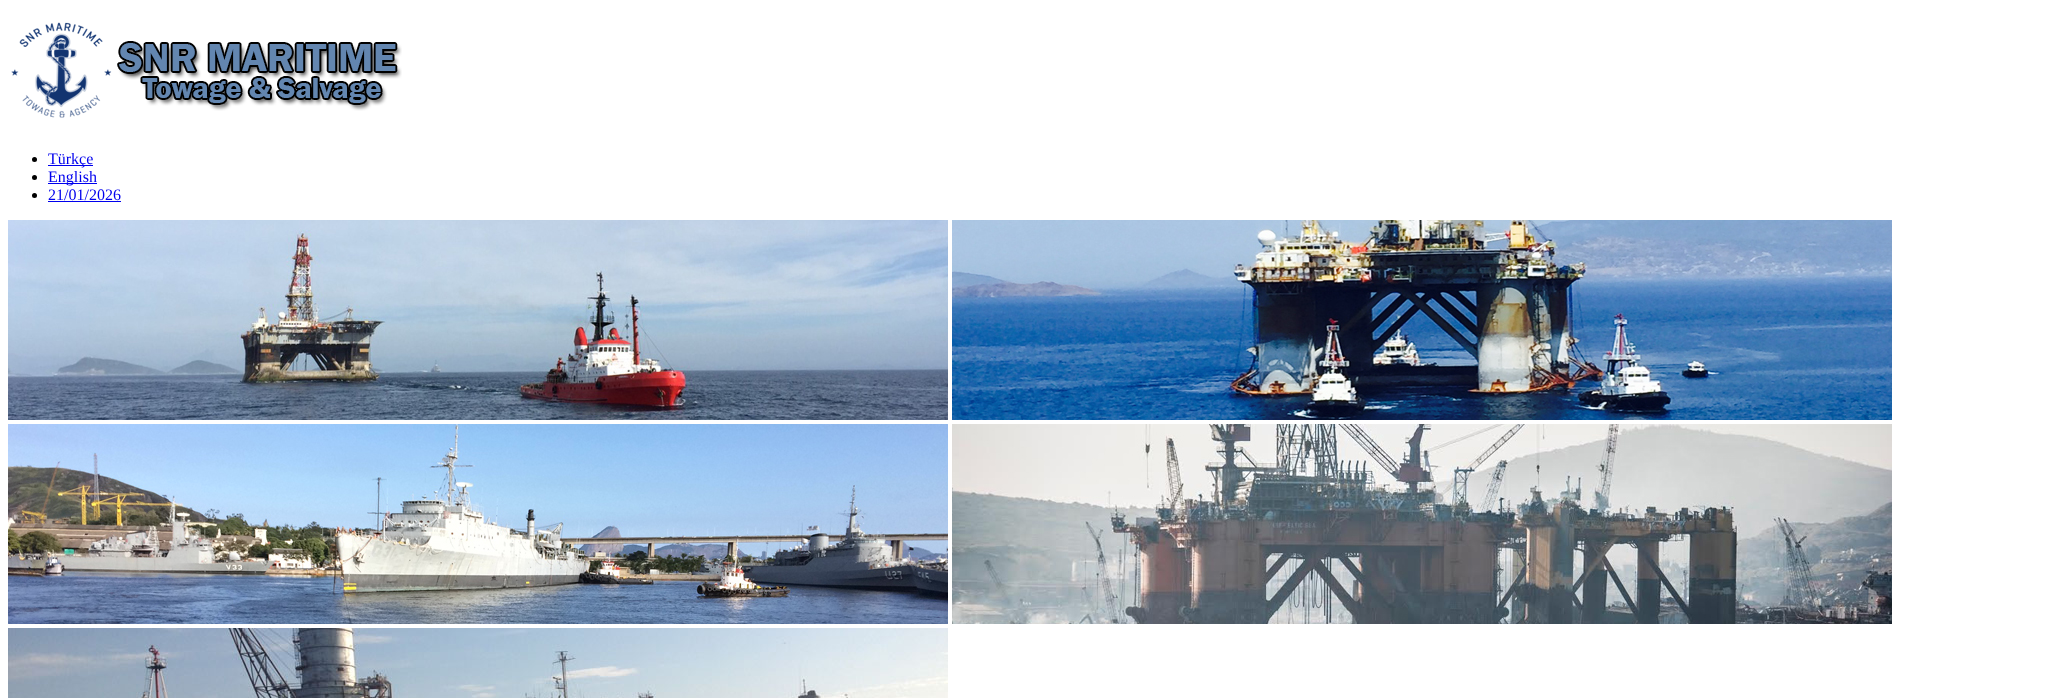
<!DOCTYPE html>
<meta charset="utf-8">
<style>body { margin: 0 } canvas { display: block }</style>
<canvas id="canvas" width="2048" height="698"></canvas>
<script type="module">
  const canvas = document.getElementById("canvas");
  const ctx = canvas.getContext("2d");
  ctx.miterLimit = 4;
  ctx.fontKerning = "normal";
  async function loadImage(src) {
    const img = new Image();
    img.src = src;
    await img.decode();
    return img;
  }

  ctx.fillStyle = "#ffffff";
  ctx.fillRect(0, 0, 2048, 698);
  ctx.drawImage(await loadImage("img1.png"), 11, 22, 391, 96);
  ctx.fillStyle = "#000000";
  ctx.beginPath();
  ctx.arc(34.5, 159.5, 2.5, 0, Math.PI * 2);
  ctx.fill();
  ctx.fillStyle = "#0000ee";
  ctx.fillRect(48, 165, 45, 1);
  ctx.font = "16px Liberation Serif";
  ctx.fillText("Türkçe", 48, 164);
  ctx.fillStyle = "#000000";
  ctx.beginPath();
  ctx.arc(34.5, 177.5, 2.5, 0, Math.PI * 2);
  ctx.fill();
  ctx.fillStyle = "#0000ee";
  ctx.fillRect(48, 183, 49, 1);
  ctx.fillText("English", 48, 182);
  ctx.fillStyle = "#000000";
  ctx.beginPath();
  ctx.arc(34.5, 195.5, 2.5, 0, Math.PI * 2);
  ctx.fill();
  ctx.fillStyle = "#0000ee";
  ctx.fillText("21/01/2026", 48, 200);
  ctx.fillRect(48, 201, 73, 1);
  ctx.drawImage(await loadImage("img2.png"), 8, 220, 940, 200);
  ctx.drawImage(await loadImage("img3.png"), 952, 220, 940, 200);
  ctx.drawImage(await loadImage("img4.png"), 8, 424, 940, 200);
  ctx.drawImage(await loadImage("img5.png"), 952, 424, 940, 200);
  ctx.drawImage(await loadImage("img6.png"), 8, 628, 940, 70);
</script>
